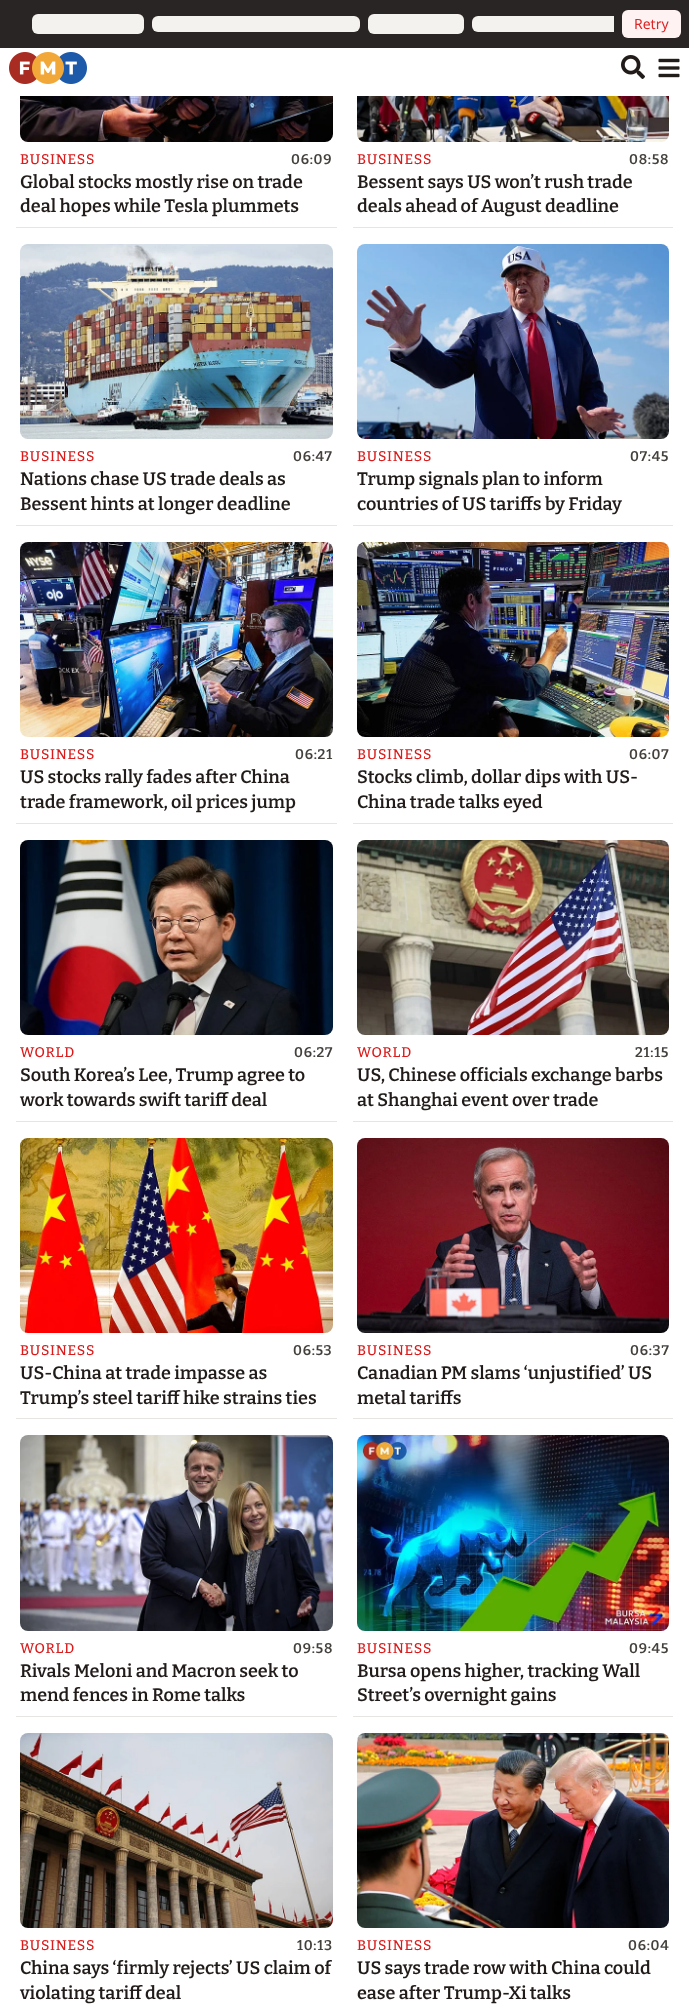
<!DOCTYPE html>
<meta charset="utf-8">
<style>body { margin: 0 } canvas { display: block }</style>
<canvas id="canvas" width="689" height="2010"></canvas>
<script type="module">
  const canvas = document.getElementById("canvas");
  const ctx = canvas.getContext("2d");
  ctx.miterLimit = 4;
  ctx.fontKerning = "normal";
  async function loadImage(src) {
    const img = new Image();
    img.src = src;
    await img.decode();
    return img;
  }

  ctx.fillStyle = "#ffffff";
  ctx.fillRect(0, 0, 689, 2010);
  ctx.fillStyle = "#292524";
  ctx.fillRect(0, 0, 689, 48);
  ctx.fillStyle = "#f4f2ef";
  ctx.beginPath();
  ctx.roundRect(32, 14, 112, 20, 6);
  ctx.fill();
  ctx.beginPath();
  ctx.roundRect(152, 16, 208, 16, 6);
  ctx.fill();
  ctx.beginPath();
  ctx.roundRect(368, 14, 96, 20, 6);
  ctx.fill();
  ctx.beginPath();
  ctx.roundRect(472, 16, 142, 16, [6, 0, 0, 6]);
  ctx.fill();
  ctx.fillStyle = "#fef2f2";
  ctx.beginPath();
  ctx.roundRect(622, 10, 59, 28, 6);
  ctx.fill();
  ctx.font = "14px Noto Sans";
  ctx.fillStyle = "#dc2626";
  ctx.fillText("Retry", 634, 29);
  ctx.drawImage(await loadImage("img1.png"), 9, 52, 78, 32);
  ctx.drawImage(await loadImage("img2.png"), 621, 55, 24, 24);
  ctx.drawImage(await loadImage("img3.png"), 658, 58, 22, 20);
  ctx.fillStyle = "#e7e5e4";
  ctx.fillRect(16, 227, 321, 1);
  ctx.drawImage(await loadImage("img4.png"), 20, 96, 313, 46);
  ctx.letterSpacing = "0.75px";
  ctx.font = "500 14px Bitter";
  ctx.fillStyle = "#da1b1b";
  ctx.fillText("BUSINESS", 20, 164);
  ctx.font = "600 14px Bitter";
  ctx.fillStyle = "#44403c";
  ctx.fillText("06:09", 291, 164);
  ctx.letterSpacing = "0px";
  ctx.font = "600 18px Bitter";
  ctx.fillStyle = "#211c1a";
  ctx.fillText("Global stocks mostly rise on trade", 20, 188);
  ctx.fillText("deal hopes while Tesla plummets", 20, 212);
  ctx.fillStyle = "#e7e5e4";
  ctx.fillRect(353, 227, 320, 1);
  ctx.drawImage(await loadImage("img5.png"), 357, 96, 312, 46);
  ctx.letterSpacing = "0.75px";
  ctx.font = "500 14px Bitter";
  ctx.fillStyle = "#da1b1b";
  ctx.fillText("BUSINESS", 357, 164);
  ctx.font = "600 14px Bitter";
  ctx.fillStyle = "#44403c";
  ctx.fillText("08:58", 629, 164);
  ctx.letterSpacing = "0px";
  ctx.font = "600 18px Bitter";
  ctx.fillStyle = "#211c1a";
  ctx.fillText("Bessent says US won’t rush trade", 357, 188);
  ctx.fillText("deals ahead of August deadline", 357, 212);
  ctx.fillStyle = "#e7e5e4";
  ctx.fillRect(16, 525, 321, 1);
  ctx.drawImage(await loadImage("img6.png"), 20, 244, 313, 195);
  ctx.letterSpacing = "0.75px";
  ctx.font = "500 14px Bitter";
  ctx.fillStyle = "#da1b1b";
  ctx.fillText("BUSINESS", 20, 461);
  ctx.font = "600 14px Bitter";
  ctx.fillStyle = "#44403c";
  ctx.fillText("06:47", 293, 461);
  ctx.letterSpacing = "0px";
  ctx.font = "600 18px Bitter";
  ctx.fillStyle = "#211c1a";
  ctx.fillText("Nations chase US trade deals as", 20, 485);
  ctx.fillText("Bessent hints at longer deadline", 20, 510);
  ctx.fillStyle = "#e7e5e4";
  ctx.fillRect(353, 525, 320, 1);
  ctx.drawImage(await loadImage("img7.png"), 357, 244, 312, 195);
  ctx.letterSpacing = "0.75px";
  ctx.font = "500 14px Bitter";
  ctx.fillStyle = "#da1b1b";
  ctx.fillText("BUSINESS", 357, 461);
  ctx.font = "600 14px Bitter";
  ctx.fillStyle = "#44403c";
  ctx.fillText("07:45", 630, 461);
  ctx.letterSpacing = "0px";
  ctx.font = "600 18px Bitter";
  ctx.fillStyle = "#211c1a";
  ctx.fillText("Trump signals plan to inform", 357, 485);
  ctx.fillText("countries of US tariffs by Friday", 357, 510);
  ctx.fillStyle = "#e7e5e4";
  ctx.fillRect(16, 823, 321, 1);
  ctx.drawImage(await loadImage("img8.png"), 20, 542, 313, 195);
  ctx.letterSpacing = "0.75px";
  ctx.font = "500 14px Bitter";
  ctx.fillStyle = "#da1b1b";
  ctx.fillText("BUSINESS", 20, 759);
  ctx.font = "600 14px Bitter";
  ctx.fillStyle = "#44403c";
  ctx.fillText("06:21", 295, 759);
  ctx.letterSpacing = "0px";
  ctx.font = "600 18px Bitter";
  ctx.fillStyle = "#211c1a";
  ctx.fillText("US stocks rally fades after China", 20, 783);
  ctx.fillText("trade framework, oil prices jump", 20, 808);
  ctx.fillStyle = "#e7e5e4";
  ctx.fillRect(353, 823, 320, 1);
  ctx.drawImage(await loadImage("img9.png"), 357, 542, 312, 195);
  ctx.letterSpacing = "0.75px";
  ctx.font = "500 14px Bitter";
  ctx.fillStyle = "#da1b1b";
  ctx.fillText("BUSINESS", 357, 759);
  ctx.font = "600 14px Bitter";
  ctx.fillStyle = "#44403c";
  ctx.fillText("06:07", 629, 759);
  ctx.letterSpacing = "0px";
  ctx.font = "600 18px Bitter";
  ctx.fillStyle = "#211c1a";
  ctx.fillText("Stocks climb, dollar dips with US-", 357, 783);
  ctx.fillText("China trade talks eyed", 357, 808);
  ctx.fillStyle = "#e7e5e4";
  ctx.fillRect(16, 1121, 321, 1);
  ctx.drawImage(await loadImage("img10.png"), 20, 840, 313, 195);
  ctx.letterSpacing = "0.75px";
  ctx.font = "500 14px Bitter";
  ctx.fillStyle = "#da1b1b";
  ctx.fillText("WORLD", 20, 1057);
  ctx.font = "600 14px Bitter";
  ctx.fillStyle = "#44403c";
  ctx.fillText("06:27", 294, 1057);
  ctx.letterSpacing = "0px";
  ctx.font = "600 18px Bitter";
  ctx.fillStyle = "#211c1a";
  ctx.fillText("South Korea’s Lee, Trump agree to", 20, 1081);
  ctx.fillText("work towards swift tariff deal", 20, 1106);
  ctx.fillStyle = "#e7e5e4";
  ctx.fillRect(353, 1121, 320, 1);
  ctx.drawImage(await loadImage("img11.png"), 357, 840, 312, 195);
  ctx.letterSpacing = "0.75px";
  ctx.font = "500 14px Bitter";
  ctx.fillStyle = "#da1b1b";
  ctx.fillText("WORLD", 357, 1057);
  ctx.font = "600 14px Bitter";
  ctx.fillStyle = "#44403c";
  ctx.fillText("21:15", 635, 1057);
  ctx.letterSpacing = "0px";
  ctx.font = "600 18px Bitter";
  ctx.fillStyle = "#211c1a";
  ctx.fillText("US, Chinese officials exchange barbs", 357, 1081);
  ctx.fillText("at Shanghai event over trade", 357, 1106);
  ctx.fillStyle = "#e7e5e4";
  ctx.fillRect(16, 1418, 321, 1);
  ctx.drawImage(await loadImage("img12.png"), 20, 1138, 313, 195);
  ctx.letterSpacing = "0.75px";
  ctx.font = "500 14px Bitter";
  ctx.fillStyle = "#da1b1b";
  ctx.fillText("BUSINESS", 20, 1355);
  ctx.font = "600 14px Bitter";
  ctx.fillStyle = "#44403c";
  ctx.fillText("06:53", 293, 1355);
  ctx.letterSpacing = "0px";
  ctx.font = "600 18px Bitter";
  ctx.fillStyle = "#211c1a";
  ctx.fillText("US-China at trade impasse as", 20, 1379);
  ctx.fillText("Trump’s steel tariff hike strains ties", 20, 1404);
  ctx.fillStyle = "#e7e5e4";
  ctx.fillRect(353, 1418, 320, 1);
  ctx.drawImage(await loadImage("img13.png"), 357, 1138, 312, 195);
  ctx.letterSpacing = "0.75px";
  ctx.font = "500 14px Bitter";
  ctx.fillStyle = "#da1b1b";
  ctx.fillText("BUSINESS", 357, 1355);
  ctx.font = "600 14px Bitter";
  ctx.fillStyle = "#44403c";
  ctx.fillText("06:37", 630, 1355);
  ctx.letterSpacing = "0px";
  ctx.font = "600 18px Bitter";
  ctx.fillStyle = "#211c1a";
  ctx.fillText("Canadian PM slams ‘unjustified’ US", 357, 1379);
  ctx.fillText("metal tariffs", 357, 1404);
  ctx.fillStyle = "#e7e5e4";
  ctx.fillRect(16, 1716, 321, 1);
  ctx.drawImage(await loadImage("img14.png"), 20, 1435, 313, 196);
  ctx.letterSpacing = "0.75px";
  ctx.font = "500 14px Bitter";
  ctx.fillStyle = "#da1b1b";
  ctx.fillText("WORLD", 20, 1653);
  ctx.font = "600 14px Bitter";
  ctx.fillStyle = "#44403c";
  ctx.fillText("09:58", 293, 1653);
  ctx.letterSpacing = "0px";
  ctx.font = "600 18px Bitter";
  ctx.fillStyle = "#211c1a";
  ctx.fillText("Rivals Meloni and Macron seek to", 20, 1677);
  ctx.fillText("mend fences in Rome talks", 20, 1701);
  ctx.fillStyle = "#e7e5e4";
  ctx.fillRect(353, 1716, 320, 1);
  ctx.drawImage(await loadImage("img15.png"), 357, 1435, 312, 196);
  ctx.letterSpacing = "0.75px";
  ctx.font = "500 14px Bitter";
  ctx.fillStyle = "#da1b1b";
  ctx.fillText("BUSINESS", 357, 1653);
  ctx.font = "600 14px Bitter";
  ctx.fillStyle = "#44403c";
  ctx.fillText("09:45", 629, 1653);
  ctx.letterSpacing = "0px";
  ctx.font = "600 18px Bitter";
  ctx.fillStyle = "#211c1a";
  ctx.fillText("Bursa opens higher, tracking Wall", 357, 1677);
  ctx.fillText("Street’s overnight gains", 357, 1701);
  ctx.drawImage(await loadImage("img16.png"), 20, 1733, 313, 195);
  ctx.letterSpacing = "0.75px";
  ctx.font = "500 14px Bitter";
  ctx.fillStyle = "#da1b1b";
  ctx.fillText("BUSINESS", 20, 1950);
  ctx.font = "600 14px Bitter";
  ctx.fillStyle = "#44403c";
  ctx.fillText("10:13", 297, 1950);
  ctx.letterSpacing = "0px";
  ctx.font = "600 18px Bitter";
  ctx.fillStyle = "#211c1a";
  ctx.fillText("China says ‘firmly rejects’ US claim of", 20, 1974);
  ctx.fillText("violating tariff deal", 20, 1999);
  ctx.drawImage(await loadImage("img17.png"), 357, 1733, 312, 195);
  ctx.letterSpacing = "0.75px";
  ctx.font = "500 14px Bitter";
  ctx.fillStyle = "#da1b1b";
  ctx.fillText("BUSINESS", 357, 1950);
  ctx.font = "600 14px Bitter";
  ctx.fillStyle = "#44403c";
  ctx.fillText("06:04", 628, 1950);
  ctx.letterSpacing = "0px";
  ctx.font = "600 18px Bitter";
  ctx.fillStyle = "#211c1a";
  ctx.fillText("US says trade row with China could", 357, 1974);
  ctx.fillText("ease after Trump-Xi talks", 357, 1999);
</script>
